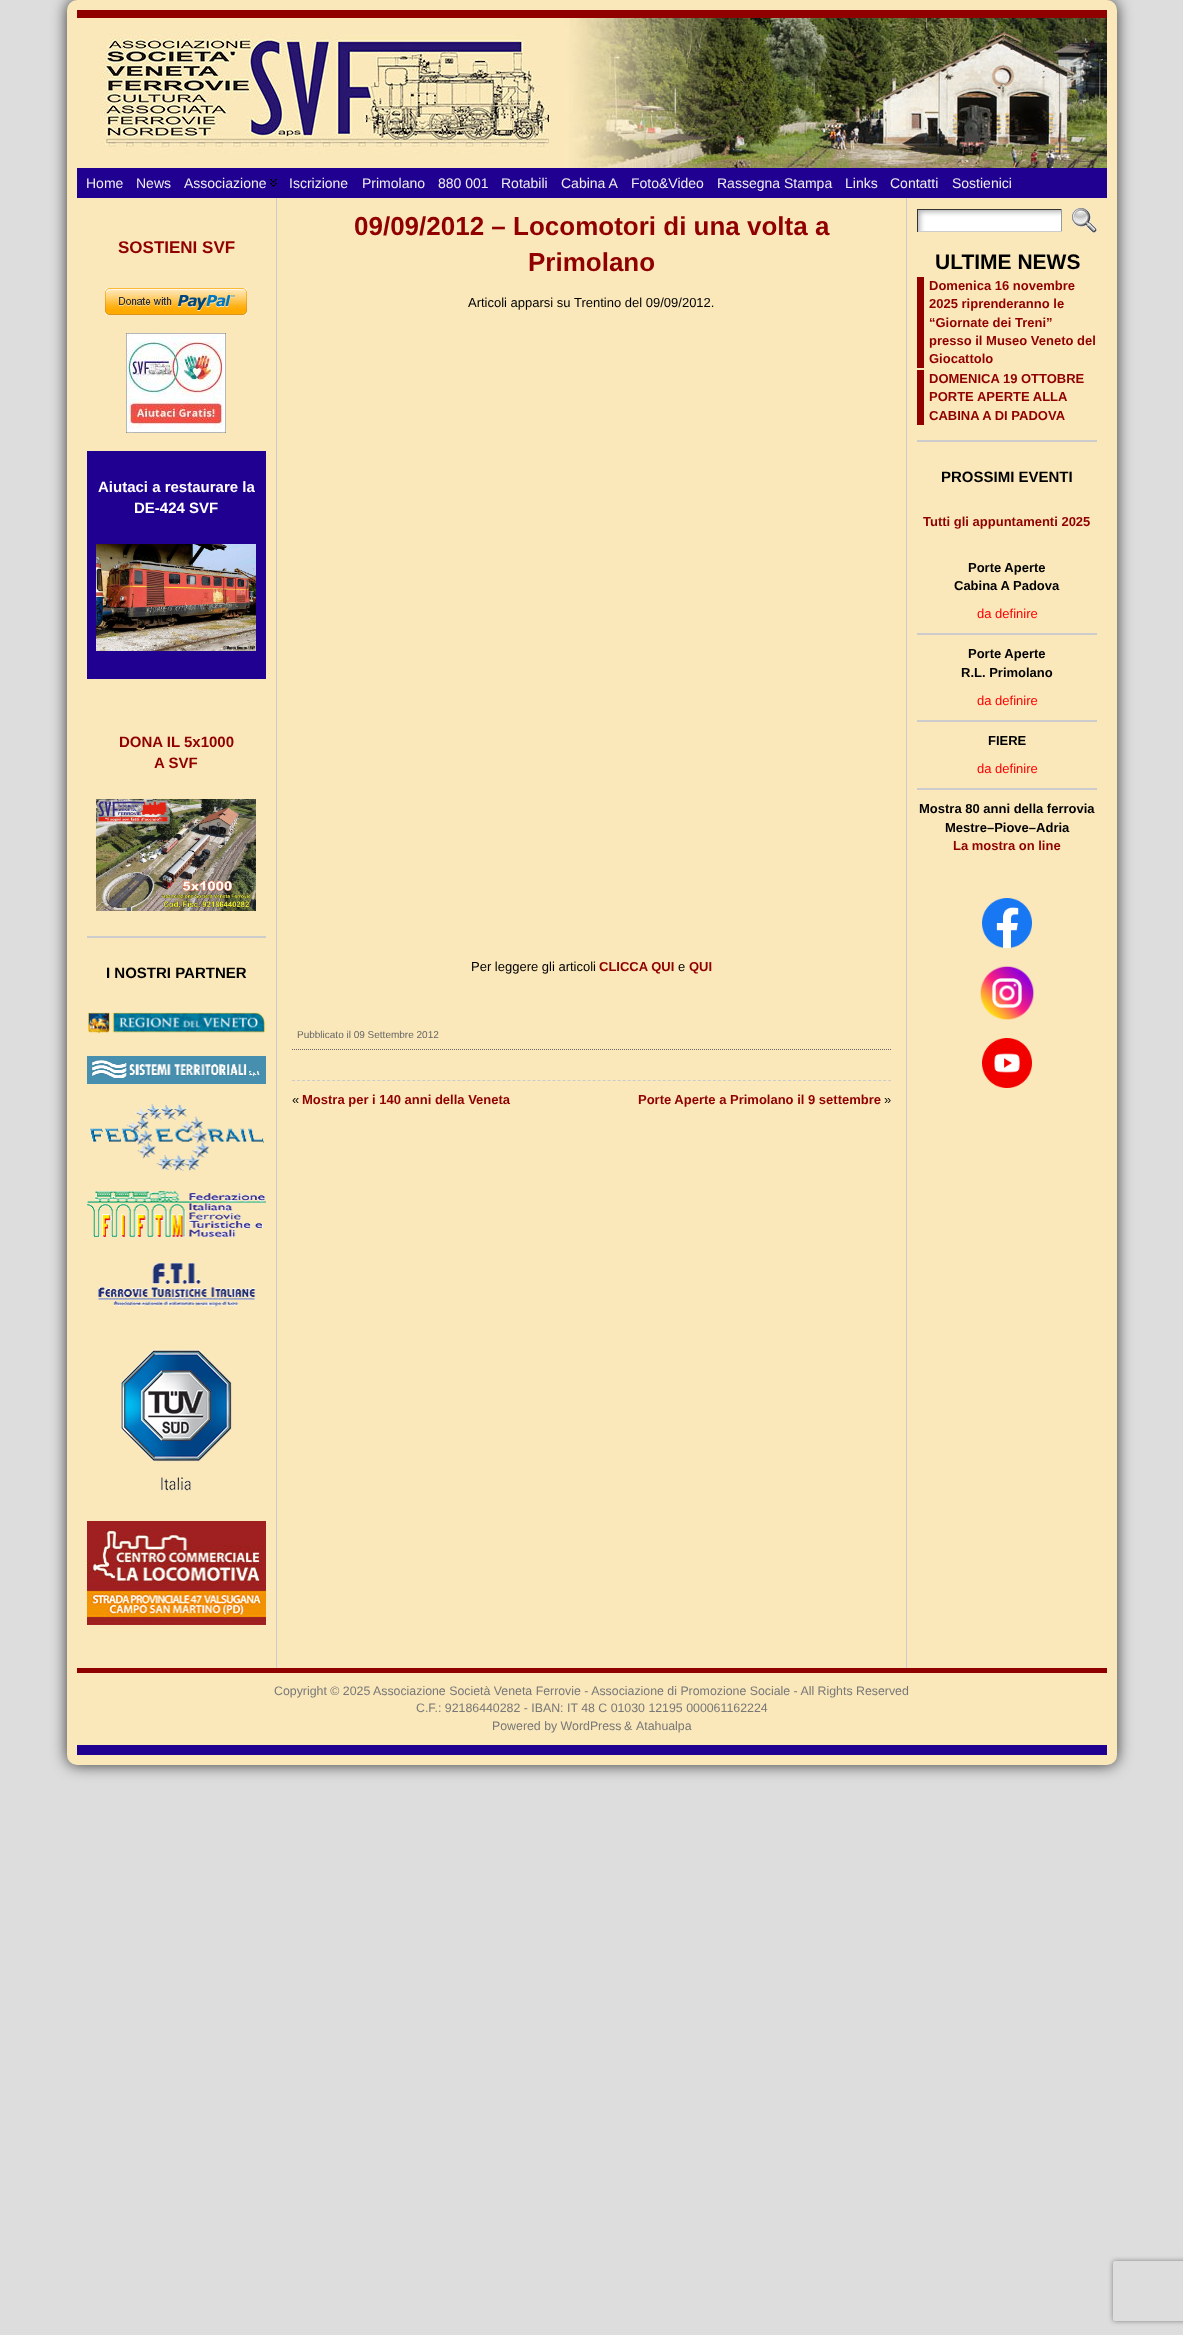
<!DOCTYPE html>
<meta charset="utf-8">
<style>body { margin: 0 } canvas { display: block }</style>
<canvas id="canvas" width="1183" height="2335"></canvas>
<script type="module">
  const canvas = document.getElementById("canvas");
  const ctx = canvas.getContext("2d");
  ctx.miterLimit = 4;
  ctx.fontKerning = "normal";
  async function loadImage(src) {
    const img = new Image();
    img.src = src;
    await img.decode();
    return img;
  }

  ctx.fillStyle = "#dddddd";
  ctx.fillRect(0, 0, 1183, 2335);
  ctx.fillStyle = "#333333";
  ctx.filter = "blur(7.5px)";
  ctx.beginPath();
  ctx.roundRect(67, 0, 1050, 1765, 10);
  ctx.fill();
  ctx.filter = "none";
  ctx.fillStyle = "#fae8ba";
  ctx.beginPath();
  ctx.roundRect(67, 0, 1050, 1765, 10);
  ctx.fill();
  ctx.fillStyle = "#900000";
  ctx.fillRect(77, 10, 1030, 8);
  ctx.drawImage(await loadImage("img1.png"), 101, 18, 472, 150);
  ctx.drawImage(await loadImage("img2.png"), 573, 18, 534, 150);
  ctx.fillStyle = "#200090";
  ctx.fillRect(77, 168, 1030, 30);
  ctx.font = "14px Liberation Sans";
  ctx.fillStyle = "#eeeeee";
  ctx.fillText("Home", 86, 188);
  ctx.fillText("News", 136, 188);
  ctx.drawImage(await loadImage("img3.png"), 270, 179, 7, 8);
  ctx.fillText("Associazione", 184, 188);
  ctx.fillText("Iscrizione", 289, 188);
  ctx.fillText("Primolano", 362, 188);
  ctx.fillText("880 001", 438, 188);
  ctx.fillText("Rotabili", 501, 188);
  ctx.fillText("Cabina A", 561, 188);
  ctx.fillText("Foto&Video", 631, 188);
  ctx.fillText("Rassegna Stampa", 717, 188);
  ctx.fillText("Links", 845, 188);
  ctx.fillText("Contatti", 890, 188);
  ctx.fillText("Sostienici", 952, 188);
  ctx.fillStyle = "#cccccc";
  ctx.fillRect(276, 198, 1, 1470);
  ctx.font = "bold 17px Liberation Sans";
  ctx.fillStyle = "#900000";
  ctx.fillText("SOSTIENI SVF", 118, 253);
  ctx.drawImage(await loadImage("img4.png"), 105, 288, 142, 27);
  ctx.drawImage(await loadImage("img5.png"), 126, 333, 100, 100);
  ctx.fillStyle = "#200090";
  ctx.fillRect(87, 451, 179, 228);
  ctx.font = "bold 15px Liberation Sans";
  ctx.fillStyle = "#ffffff";
  ctx.fillText("Aiutaci a restaurare la", 98, 492);
  ctx.fillText("DE-424 SVF", 134, 513);
  ctx.drawImage(await loadImage("img6.png"), 96, 544, 160, 107);
  ctx.fillStyle = "#900000";
  ctx.fillText("DONA IL 5x1000", 119, 747);
  ctx.fillText("A SVF", 154, 768);
  ctx.drawImage(await loadImage("img7.png"), 96, 799, 160, 112);
  ctx.fillStyle = "#cccccc";
  ctx.fillRect(87, 936, 179, 2);
  ctx.fillStyle = "#000000";
  ctx.fillText("I NOSTRI PARTNER", 106, 978);
  ctx.drawImage(await loadImage("img8.png"), 88, 1012, 178, 22);
  ctx.drawImage(await loadImage("img9.png"), 87, 1056, 179, 28);
  ctx.drawImage(await loadImage("img10.png"), 89, 1104, 176, 67);
  ctx.drawImage(await loadImage("img11.png"), 87, 1191, 179, 46);
  ctx.drawImage(await loadImage("img12.png"), 98, 1263, 158, 44);
  ctx.drawImage(await loadImage("img13.png"), 120, 1349, 112, 142);
  ctx.drawImage(await loadImage("img14.png"), 87, 1521, 179, 104);
  ctx.font = "bold 26px Liberation Sans";
  ctx.fillStyle = "#900000";
  ctx.fillText("09/09/2012 – Locomotori di una volta a", 354, 235);
  ctx.fillText("Primolano", 528, 271);
  ctx.font = "13px Liberation Sans";
  ctx.fillStyle = "#000000";
  ctx.fillText("Articoli apparsi su Trentino del 09/09/2012.", 468, 307);
  ctx.fillText("Per leggere gli articoli", 471, 971);
  ctx.font = "bold 13px Liberation Sans";
  ctx.fillStyle = "#900000";
  ctx.fillText("CLICCA QUI", 599, 971);
  ctx.font = "13px Liberation Sans";
  ctx.fillStyle = "#000000";
  ctx.fillText("e", 678, 971);
  ctx.font = "bold 13px Liberation Sans";
  ctx.fillStyle = "#900000";
  ctx.fillText("QUI", 689, 971);
  ctx.beginPath();
  ctx.moveTo(292, 1049.5);
  ctx.lineTo(891, 1049.5);
  ctx.strokeStyle = "#666666";
  ctx.setLineDash([1, 1]);
  ctx.stroke();
  ctx.font = "10px Liberation Sans";
  ctx.fillStyle = "#666666";
  ctx.fillText("Pubblicato il 09 Settembre 2012", 297, 1038);
  ctx.beginPath();
  ctx.moveTo(292, 1080.5);
  ctx.lineTo(891, 1080.5);
  ctx.strokeStyle = "#cccccc";
  ctx.setLineDash([3, 2.01]);
  ctx.stroke();
  ctx.font = "13px Liberation Sans";
  ctx.fillStyle = "#000000";
  ctx.fillText("«", 292, 1104);
  ctx.font = "bold 13px Liberation Sans";
  ctx.fillStyle = "#900000";
  ctx.fillText("Mostra per i 140 anni della Veneta", 302, 1104);
  ctx.fillText("Porte Aperte a Primolano il 9 settembre", 638, 1104);
  ctx.font = "13px Liberation Sans";
  ctx.fillStyle = "#000000";
  ctx.fillText("»", 884, 1104);
  ctx.fillStyle = "#cccccc";
  ctx.fillRect(906, 198, 1, 1470);
  ctx.drawImage(await loadImage("img15.png"), 918, 210, 143, 21);
  ctx.fillStyle = "#333333";
  ctx.fillRect(917, 209, 145, 1);
  ctx.fillStyle = "#999999";
  ctx.fillRect(1061, 209, 1, 23);
  ctx.fillStyle = "#cccccc";
  ctx.fillRect(917, 231, 145, 1);
  ctx.fillStyle = "#333333";
  ctx.fillRect(917, 209, 1, 23);
  ctx.drawImage(await loadImage("img16.png"), 1072, 208, 25, 25);
  ctx.font = "bold 21px Liberation Sans";
  ctx.fillStyle = "#000000";
  ctx.fillText("ULTIME NEWS", 935, 269);
  ctx.fillStyle = "#900000";
  ctx.fillRect(917, 277, 7, 91);
  ctx.font = "bold 13px Liberation Sans";
  ctx.fillText("Domenica 16 novembre", 929, 290);
  ctx.fillText("2025 riprenderanno le", 929, 308);
  ctx.fillText("“Giornate dei Treni”", 929, 327);
  ctx.fillText("presso il Museo Veneto del", 929, 345);
  ctx.fillText("Giocattolo", 929, 363);
  ctx.fillRect(917, 370, 7, 55);
  ctx.fillText("DOMENICA 19 OTTOBRE", 929, 383);
  ctx.fillText("PORTE APERTE ALLA", 929, 401);
  ctx.fillText("CABINA A DI PADOVA", 929, 420);
  ctx.fillStyle = "#cccccc";
  ctx.fillRect(917, 440, 180, 2);
  ctx.font = "bold 15px Liberation Sans";
  ctx.fillStyle = "#000000";
  ctx.fillText("PROSSIMI EVENTI", 941, 482);
  ctx.font = "bold 13px Liberation Sans";
  ctx.fillStyle = "#900000";
  ctx.fillText("Tutti gli appuntamenti 2025", 923, 526);
  ctx.fillStyle = "#000000";
  ctx.fillText("Porte Aperte", 968, 572);
  ctx.fillText("Cabina A Padova", 954, 590);
  ctx.font = "13px Liberation Sans";
  ctx.fillStyle = "#ff0000";
  ctx.fillText("da definire", 977, 618);
  ctx.fillStyle = "#cccccc";
  ctx.fillRect(917, 633, 180, 2);
  ctx.font = "bold 13px Liberation Sans";
  ctx.fillStyle = "#000000";
  ctx.fillText("Porte Aperte", 968, 658);
  ctx.fillText("R.L. Primolano", 961, 677);
  ctx.font = "13px Liberation Sans";
  ctx.fillStyle = "#ff0000";
  ctx.fillText("da definire", 977, 705);
  ctx.fillStyle = "#cccccc";
  ctx.fillRect(917, 720, 180, 2);
  ctx.font = "bold 13px Liberation Sans";
  ctx.fillStyle = "#000000";
  ctx.fillText("FIERE", 988, 745);
  ctx.font = "13px Liberation Sans";
  ctx.fillStyle = "#ff0000";
  ctx.fillText("da definire", 977, 773);
  ctx.fillStyle = "#cccccc";
  ctx.fillRect(917, 788, 180, 2);
  ctx.font = "bold 13px Liberation Sans";
  ctx.fillStyle = "#000000";
  ctx.fillText("Mostra 80 anni della ferrovia", 919, 813);
  ctx.fillText("Mestre–Piove–Adria", 945, 832);
  ctx.fillStyle = "#900000";
  ctx.fillText("La mostra on line", 953, 850);
  ctx.drawImage(await loadImage("img17.png"), 982, 898, 50, 50);
  ctx.drawImage(await loadImage("img18.png"), 980, 966, 54, 54);
  ctx.drawImage(await loadImage("img19.png"), 982, 1038, 50, 50);
  ctx.fillRect(77, 1668, 1030, 5);
  ctx.fillStyle = "#200090";
  ctx.fillRect(77, 1745, 1030, 10);
  ctx.font = "12.35px Liberation Sans";
  ctx.fillStyle = "#777777";
  ctx.fillText("Copyright © 2025", 274, 1695);
  ctx.fillText("Associazione Società Veneta Ferrovie - Associazione di Promozione Sociale - All Rights Reserved", 373, 1695);
  ctx.fillText("C.F.: 92186440282 - IBAN: IT 48 C 01030 12195 000061162224", 416, 1712);
  ctx.fillText("Powered by WordPress", 492, 1730);
  ctx.fillText("&", 624, 1730);
  ctx.fillText("Atahualpa", 636, 1730);
  ctx.save();
  ctx.beginPath();
  ctx.moveTo(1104, 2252);
  ctx.lineTo(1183, 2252);
  ctx.lineTo(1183, 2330);
  ctx.lineTo(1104, 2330);
  ctx.closePath();
  ctx.moveTo(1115, 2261);
  ctx.lineTo(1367, 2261);
  ctx.bezierCurveTo(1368, 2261, 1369, 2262, 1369, 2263);
  ctx.lineTo(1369, 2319);
  ctx.bezierCurveTo(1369, 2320, 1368, 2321, 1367, 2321);
  ctx.lineTo(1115, 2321);
  ctx.bezierCurveTo(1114, 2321, 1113, 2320, 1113, 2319);
  ctx.lineTo(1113, 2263);
  ctx.bezierCurveTo(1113, 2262, 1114, 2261, 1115, 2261);
  ctx.closePath();
  ctx.clip("evenodd");
  ctx.fillStyle = "#808080";
  ctx.filter = "blur(2.5px)";
  ctx.beginPath();
  ctx.roundRect(1113, 2261, 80, 60, 2);
  ctx.fill();
  ctx.filter = "none";
  ctx.restore();
</script>
